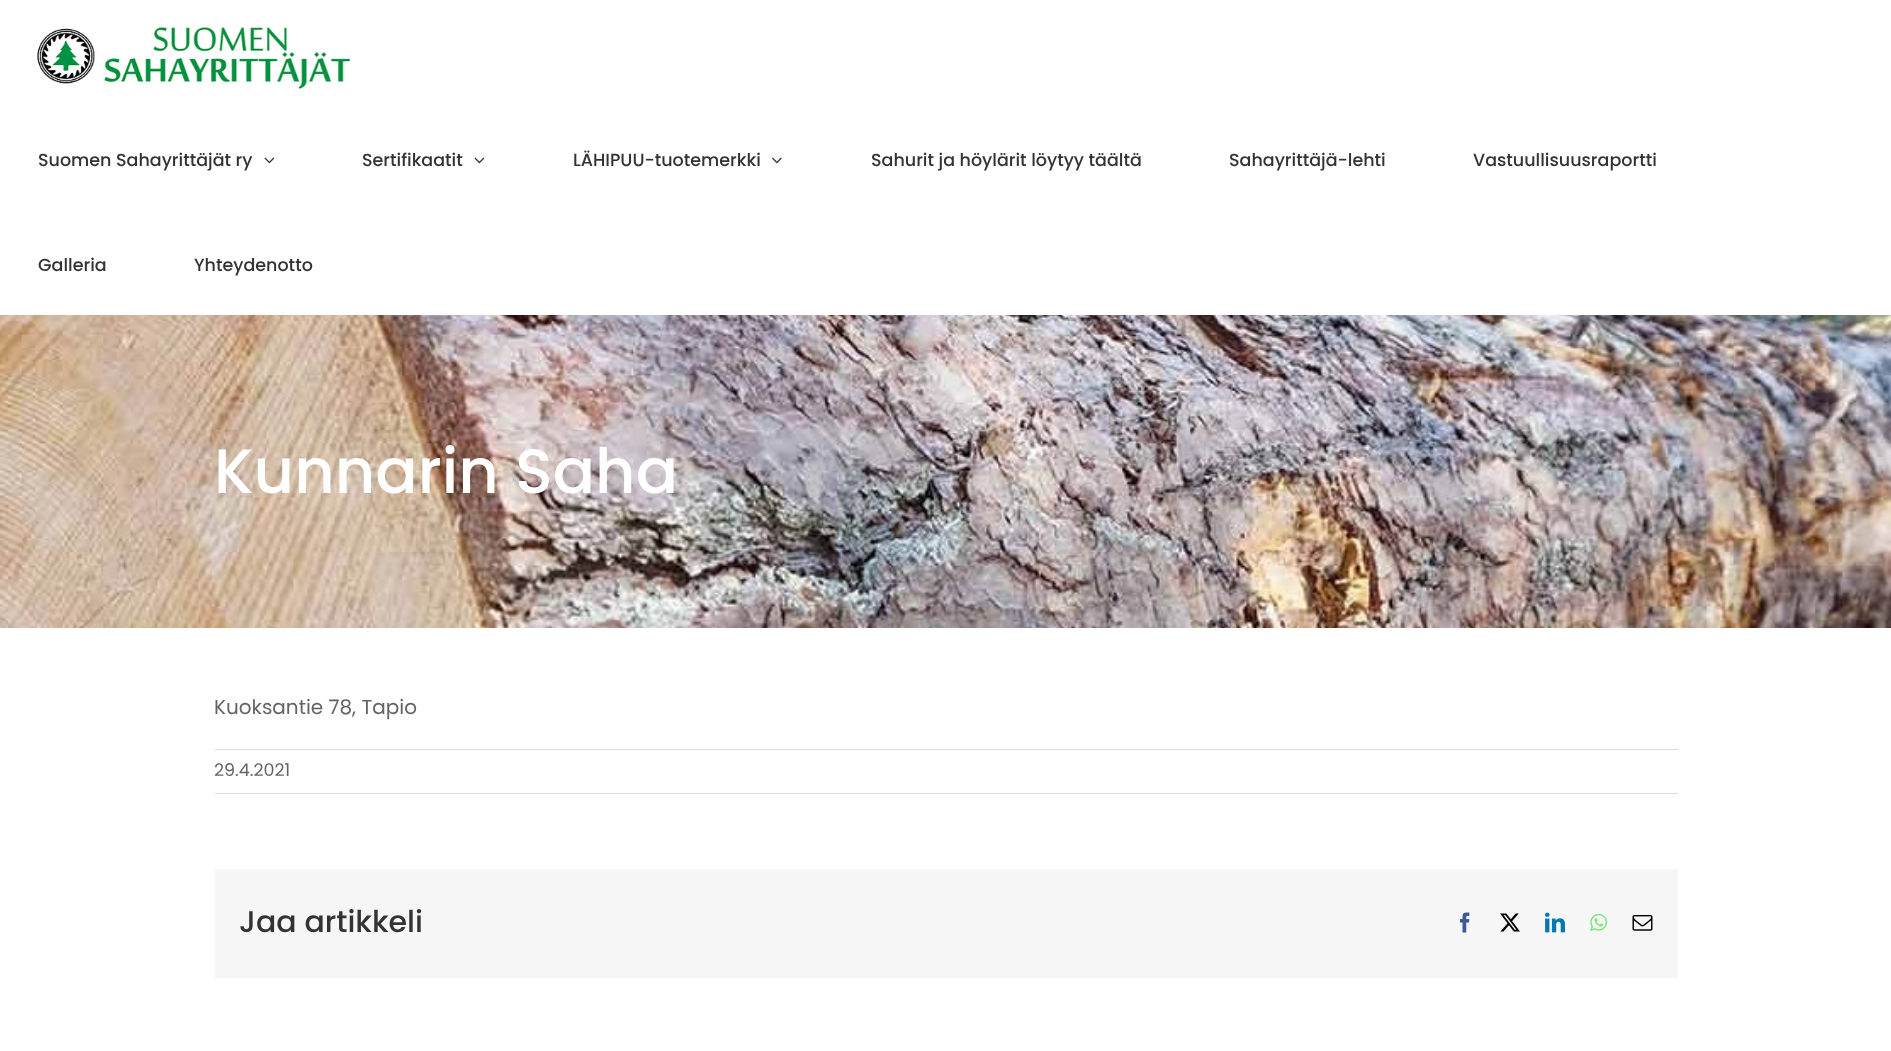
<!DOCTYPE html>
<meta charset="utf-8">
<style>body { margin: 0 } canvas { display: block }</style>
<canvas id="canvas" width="1891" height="1051"></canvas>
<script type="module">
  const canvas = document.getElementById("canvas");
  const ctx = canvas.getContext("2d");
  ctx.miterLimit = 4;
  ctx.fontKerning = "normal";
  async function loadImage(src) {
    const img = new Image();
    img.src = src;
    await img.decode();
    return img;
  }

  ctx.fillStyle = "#ffffff";
  ctx.fillRect(0, 0, 1891, 1051);
  ctx.drawImage(await loadImage("img1.png"), 37, 27, 313, 62);
  ctx.font = "500 17.5px Poppins";
  ctx.fillStyle = "#333333";
  ctx.fillText("Suomen Sahayrittäjät ry", 38, 166);
  ctx.drawImage(await loadImage("img2.png"), 264, 157, 11, 7);
  ctx.fillText("Sertifikaatit", 362, 166);
  ctx.drawImage(await loadImage("img2.png"), 474, 157, 11, 7);
  ctx.fillText("LÄHIPUU-tuotemerkki", 573, 166);
  ctx.drawImage(await loadImage("img3.png"), 772, 157, 10, 7);
  ctx.fillText("Sahurit ja höylärit löytyy täältä", 871, 166);
  ctx.fillText("Sahayrittäjä-lehti", 1229, 166);
  ctx.fillText("Vastuullisuusraportti", 1473, 166);
  ctx.fillText("Galleria", 38, 271);
  ctx.fillText("Yhteydenotto", 194, 271);
  ctx.drawImage(await loadImage("img4.png"), 0, 315, 1891, 313);
  ctx.font = "500 62.5px Poppins";
  ctx.fillStyle = "#ffffff";
  ctx.fillText("Kunnarin Saha", 214, 493);
  ctx.font = "20px Poppins";
  ctx.fillStyle = "#646464";
  ctx.fillText("Kuoksantie 78, Tapio", 214, 714);
  ctx.fillStyle = "#e0dede";
  ctx.fillRect(215, 749, 1463, 1);
  ctx.fillRect(215, 793, 1463, 1);
  ctx.font = "17.5px Poppins";
  ctx.fillStyle = "#646464";
  ctx.fillText("29.4.2021", 214, 776);
  ctx.fillStyle = "#f6f6f6";
  ctx.fillRect(215, 869, 1463, 109);
  ctx.font = "500 30px Poppins";
  ctx.fillStyle = "#333333";
  ctx.fillText("Jaa artikkeli", 239, 932);
  ctx.drawImage(await loadImage("img5.png"), 1460, 912, 10, 21);
  ctx.drawImage(await loadImage("img6.png"), 1500, 913, 20, 19);
  ctx.drawImage(await loadImage("img7.png"), 1545, 912, 20, 21);
  ctx.drawImage(await loadImage("img8.png"), 1590, 913, 18, 18);
  ctx.drawImage(await loadImage("img9.png"), 1632, 915, 21, 16);
</script>
